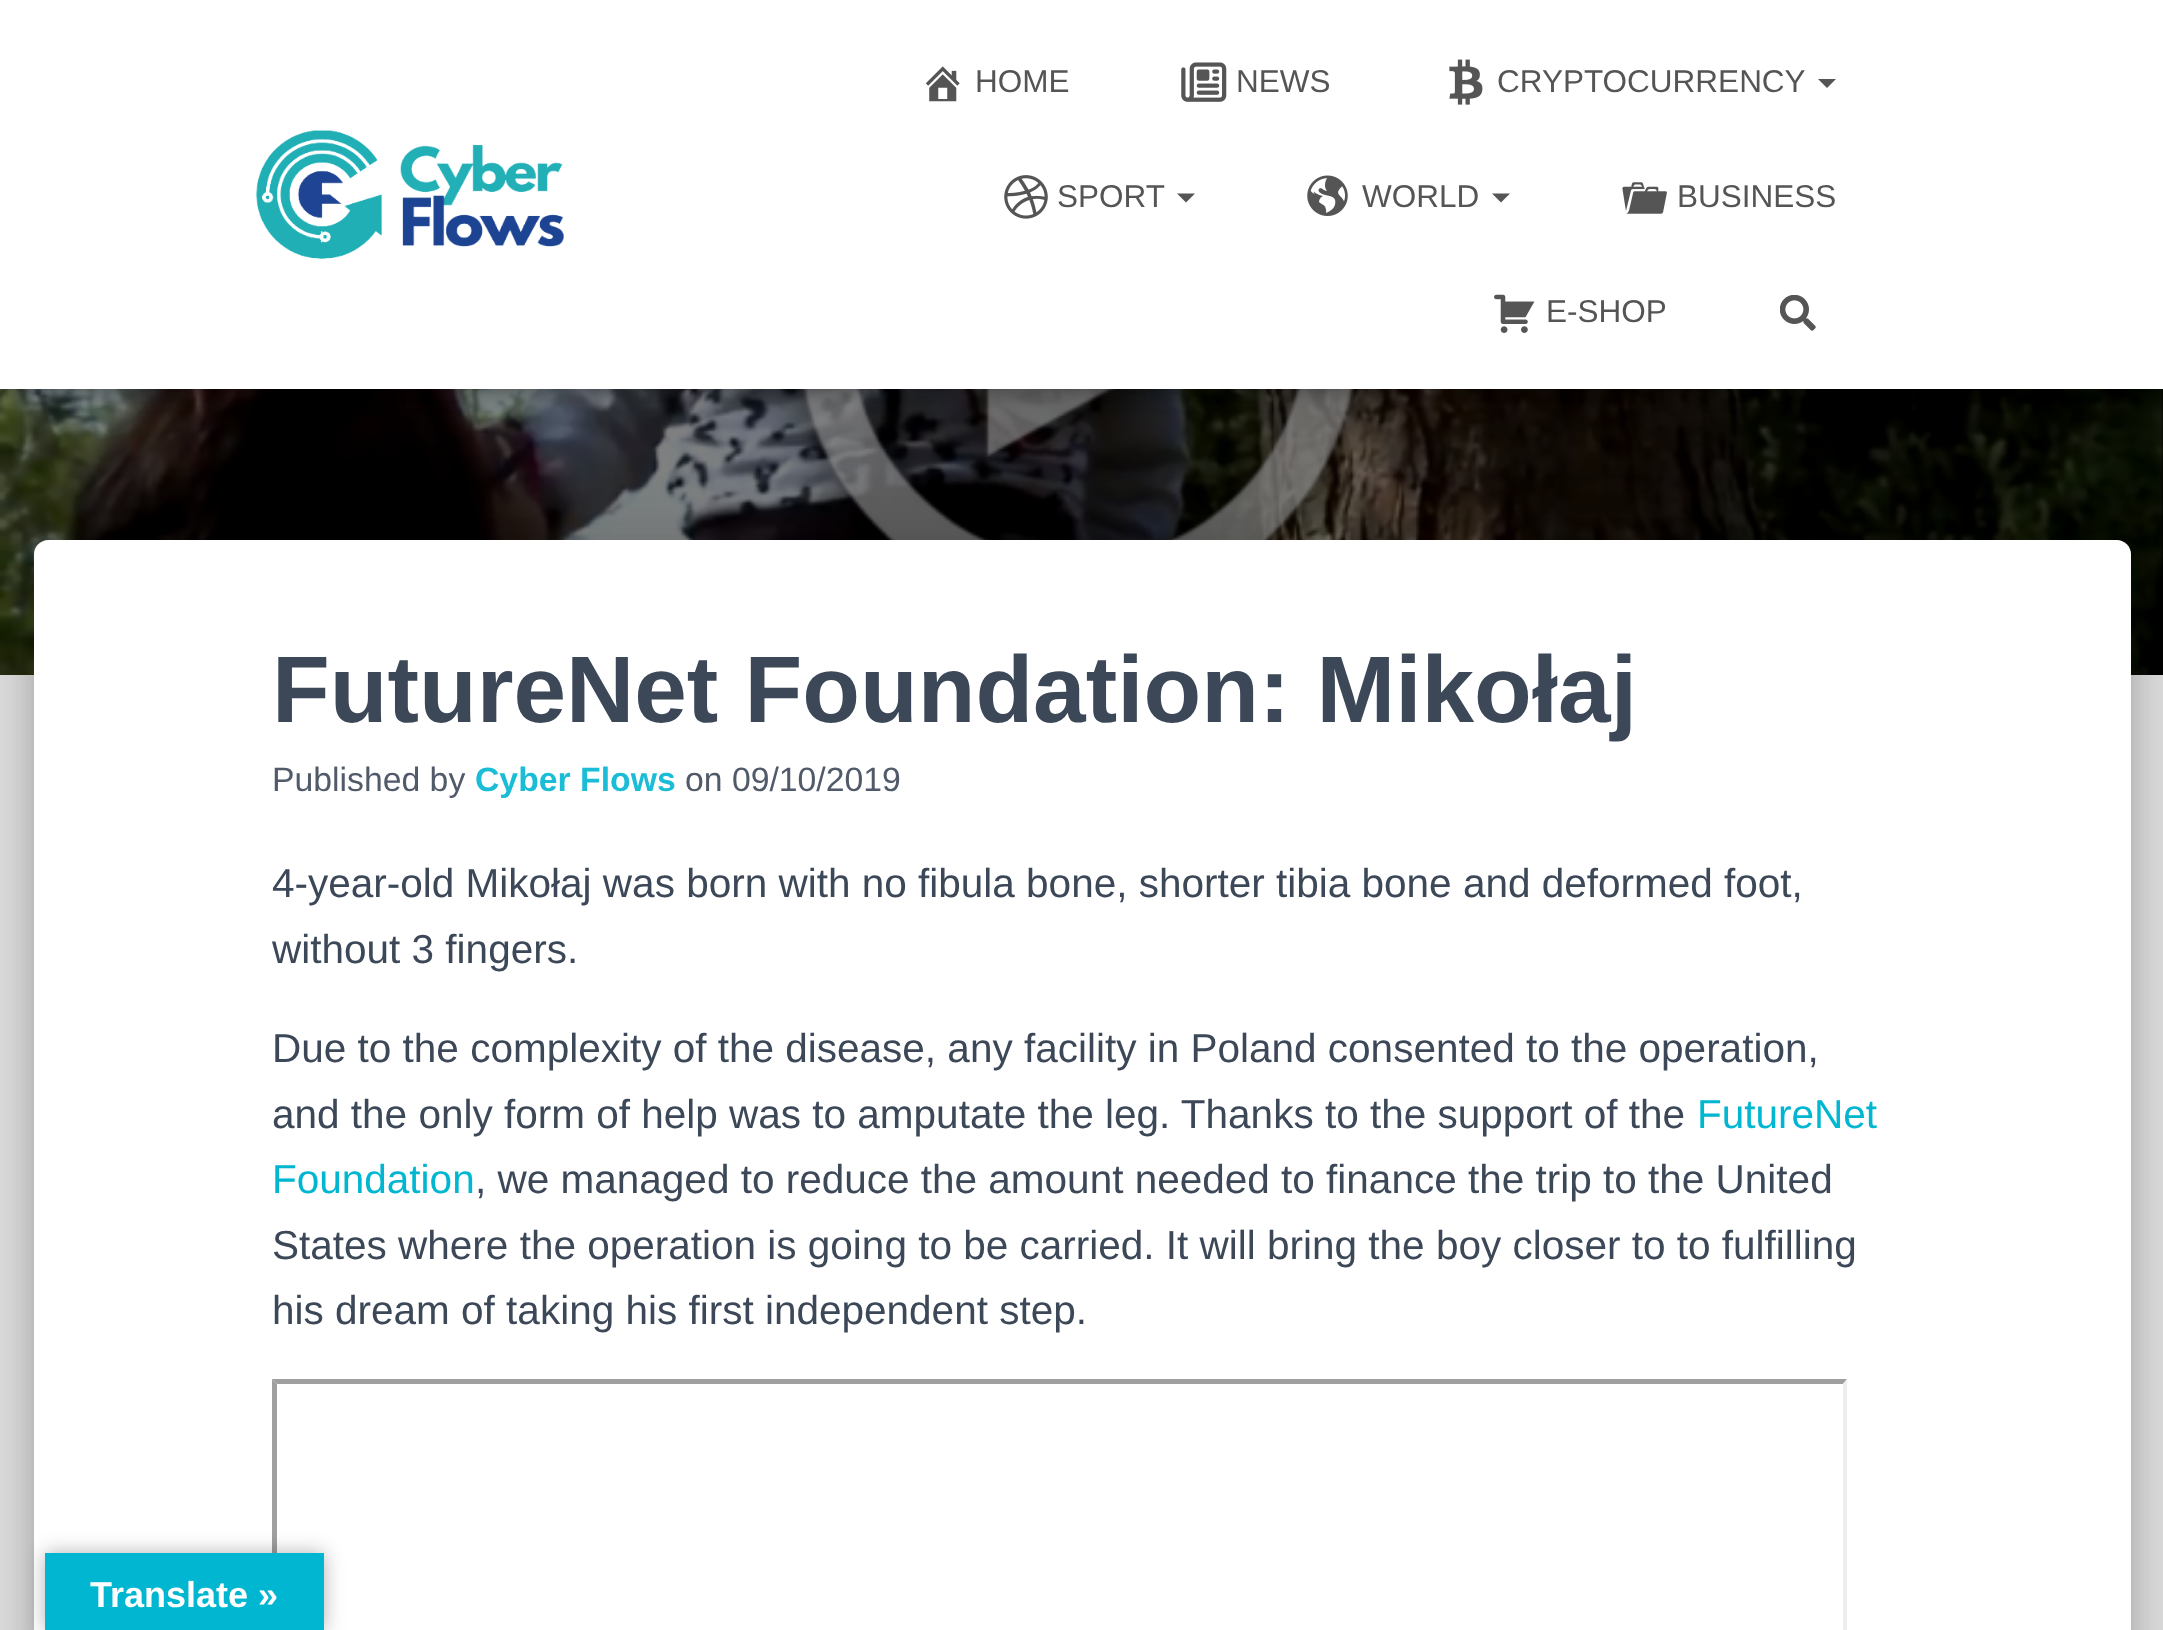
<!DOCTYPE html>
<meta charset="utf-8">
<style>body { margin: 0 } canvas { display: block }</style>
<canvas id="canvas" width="2163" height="1630"></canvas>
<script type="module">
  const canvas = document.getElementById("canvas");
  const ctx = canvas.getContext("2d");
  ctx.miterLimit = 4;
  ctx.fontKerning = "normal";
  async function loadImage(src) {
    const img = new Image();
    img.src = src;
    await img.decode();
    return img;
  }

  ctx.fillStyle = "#e5e5e5";
  ctx.fillRect(0, 0, 2163, 1630);
  ctx.drawImage(await loadImage("img10.png"), 0, 389, 2163, 286);
  ctx.fillStyle = "rgba(0, 0, 0, 0.1)";
  ctx.filter = "blur(5.5px)";
  ctx.beginPath();
  ctx.rect(5, 14, 2155, 380);
  ctx.fill();
  ctx.filter = "none";
  ctx.fillStyle = "rgba(0, 0, 0, 0.12)";
  ctx.filter = "blur(11px)";
  ctx.beginPath();
  ctx.rect(0, 2, 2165, 390);
  ctx.fill();
  ctx.filter = "none";
  ctx.fillStyle = "rgba(0, 0, 0, 0.42)";
  ctx.filter = "blur(11px)";
  ctx.beginPath();
  ctx.rect(14, 16, 2137, 362);
  ctx.fill();
  ctx.filter = "none";
  ctx.fillStyle = "#ffffff";
  ctx.fillRect(0, 0, 2163, 389);
  ctx.drawImage(await loadImage("img1.png"), 256, 130, 308, 129);
  ctx.drawImage(await loadImage("img2.png"), 925, 66, 35, 36);
  ctx.font = "31.5px Liberation Sans";
  ctx.fillStyle = "#555555";
  ctx.fillText("HOME", 975, 92);
  ctx.drawImage(await loadImage("img3.png"), 1181, 62, 46, 40);
  ctx.fillText("NEWS", 1236, 92);
  ctx.drawImage(await loadImage("img4.png"), 1449, 59, 34, 46);
  ctx.fillText("CRYPTOCURRENCY", 1497, 92);
  ctx.beginPath();
  ctx.moveTo(1818, 79);
  ctx.lineTo(1836, 79);
  ctx.lineTo(1827, 88);
  ctx.closePath();
  ctx.fill();
  ctx.drawImage(await loadImage("img5.png"), 1004, 175, 44, 44);
  ctx.fillText("SPORT", 1057, 207);
  ctx.beginPath();
  ctx.moveTo(1177, 193.5);
  ctx.lineTo(1195, 193.5);
  ctx.lineTo(1186, 202.5);
  ctx.closePath();
  ctx.fill();
  ctx.drawImage(await loadImage("img6.png"), 1307, 175, 41, 41);
  ctx.fillText("WORLD", 1362, 207);
  ctx.beginPath();
  ctx.moveTo(1492, 193.5);
  ctx.lineTo(1510, 193.5);
  ctx.lineTo(1501, 202.5);
  ctx.closePath();
  ctx.fill();
  ctx.drawImage(await loadImage("img7.png"), 1622, 182, 45, 32);
  ctx.fillText("BUSINESS", 1677, 207);
  ctx.drawImage(await loadImage("img8.png"), 1494, 294, 41, 39);
  ctx.fillText("E-SHOP", 1546, 322);
  ctx.drawImage(await loadImage("img9.png"), 1780, 295, 36, 36);
  ctx.fillStyle = "rgba(0, 0, 0, 0.2)";
  ctx.filter = "blur(11px)";
  ctx.beginPath();
  ctx.roundRect(45, 569, 2075, 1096, 2);
  ctx.fill();
  ctx.filter = "none";
  ctx.fillStyle = "rgba(0, 0, 0, 0.12)";
  ctx.filter = "blur(34px)";
  ctx.beginPath();
  ctx.roundRect(23, 542, 2119, 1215, 25);
  ctx.fill();
  ctx.filter = "none";
  ctx.fillStyle = "rgba(0, 0, 0, 0.14)";
  ctx.filter = "blur(27px)";
  ctx.beginPath();
  ctx.roundRect(29, 572, 2106, 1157, 18);
  ctx.fill();
  ctx.filter = "none";
  ctx.fillStyle = "#ffffff";
  ctx.beginPath();
  ctx.moveTo(48, 540);
  ctx.lineTo(2117, 540);
  ctx.bezierCurveTo(2124.5, 540, 2131, 546.5, 2131, 554);
  ctx.lineTo(2131, 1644);
  ctx.lineTo(34, 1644);
  ctx.lineTo(34, 554);
  ctx.bezierCurveTo(34, 546.5, 40.5, 540, 48, 540);
  ctx.closePath();
  ctx.fill();
  ctx.font = "bold 94.5px Liberation Sans";
  ctx.fillStyle = "#3c4858";
  ctx.fillText("FutureNet Foundation: Mikołaj", 272, 722);
  ctx.font = "33.75px Liberation Sans";
  ctx.fillStyle = "#505a69";
  ctx.fillText("Published by", 272, 791);
  ctx.font = "bold 33.75px Liberation Sans";
  ctx.fillStyle = "#1abdd5";
  ctx.fillText("Cyber Flows", 475, 791);
  ctx.font = "33.75px Liberation Sans";
  ctx.fillStyle = "#505a69";
  ctx.fillText("on 09/10/2019", 685, 791);
  ctx.font = "40.5px Liberation Sans";
  ctx.fillStyle = "#3c4858";
  ctx.fillText("4-year-old Mikołaj was born with no fibula bone, shorter tibia bone and deformed foot,", 272, 897);
  ctx.fillText("without 3 fingers.", 272, 963);
  ctx.fillText("Due to the complexity of the disease, any facility in Poland consented to the operation,", 272, 1062);
  ctx.fillText("and the only form of help was to amputate the leg. Thanks to the support of the", 272, 1128);
  ctx.fillStyle = "#00b6d0";
  ctx.fillText("FutureNet", 1697, 1128);
  ctx.fillText("Foundation", 272, 1193);
  ctx.fillStyle = "#3c4858";
  ctx.fillText(", we managed to reduce the amount needed to finance the trip to the United", 475, 1193);
  ctx.fillText("States where the operation is going to be carried. It will bring the boy closer to to fulfilling", 272, 1259);
  ctx.fillText("his dream of taking his first independent step.", 272, 1324);
  ctx.fillStyle = "#9f9f9f";
  ctx.beginPath();
  ctx.moveTo(272, 1379);
  ctx.lineTo(1847, 1379);
  ctx.lineTo(1843, 1384);
  ctx.lineTo(277, 1384);
  ctx.closePath();
  ctx.fill();
  ctx.beginPath();
  ctx.moveTo(272, 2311);
  ctx.lineTo(272, 1379);
  ctx.lineTo(277, 1384);
  ctx.lineTo(277, 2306);
  ctx.closePath();
  ctx.fill();
  ctx.fillStyle = "#eeeeee";
  ctx.beginPath();
  ctx.moveTo(1847, 1379);
  ctx.lineTo(1847, 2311);
  ctx.lineTo(1843, 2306);
  ctx.lineTo(1843, 1384);
  ctx.closePath();
  ctx.fill();
  ctx.fillStyle = "rgba(0, 0, 0, 0.3)";
  ctx.filter = "blur(10px)";
  ctx.beginPath();
  ctx.rect(45, 1553, 279, 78);
  ctx.fill();
  ctx.filter = "none";
  ctx.fillStyle = "#00b6d0";
  ctx.fillRect(45, 1553, 279, 77);
  ctx.font = "bold 36px Liberation Sans";
  ctx.fillStyle = "#ffffff";
  ctx.fillText("Translate »", 90, 1607);
</script>
